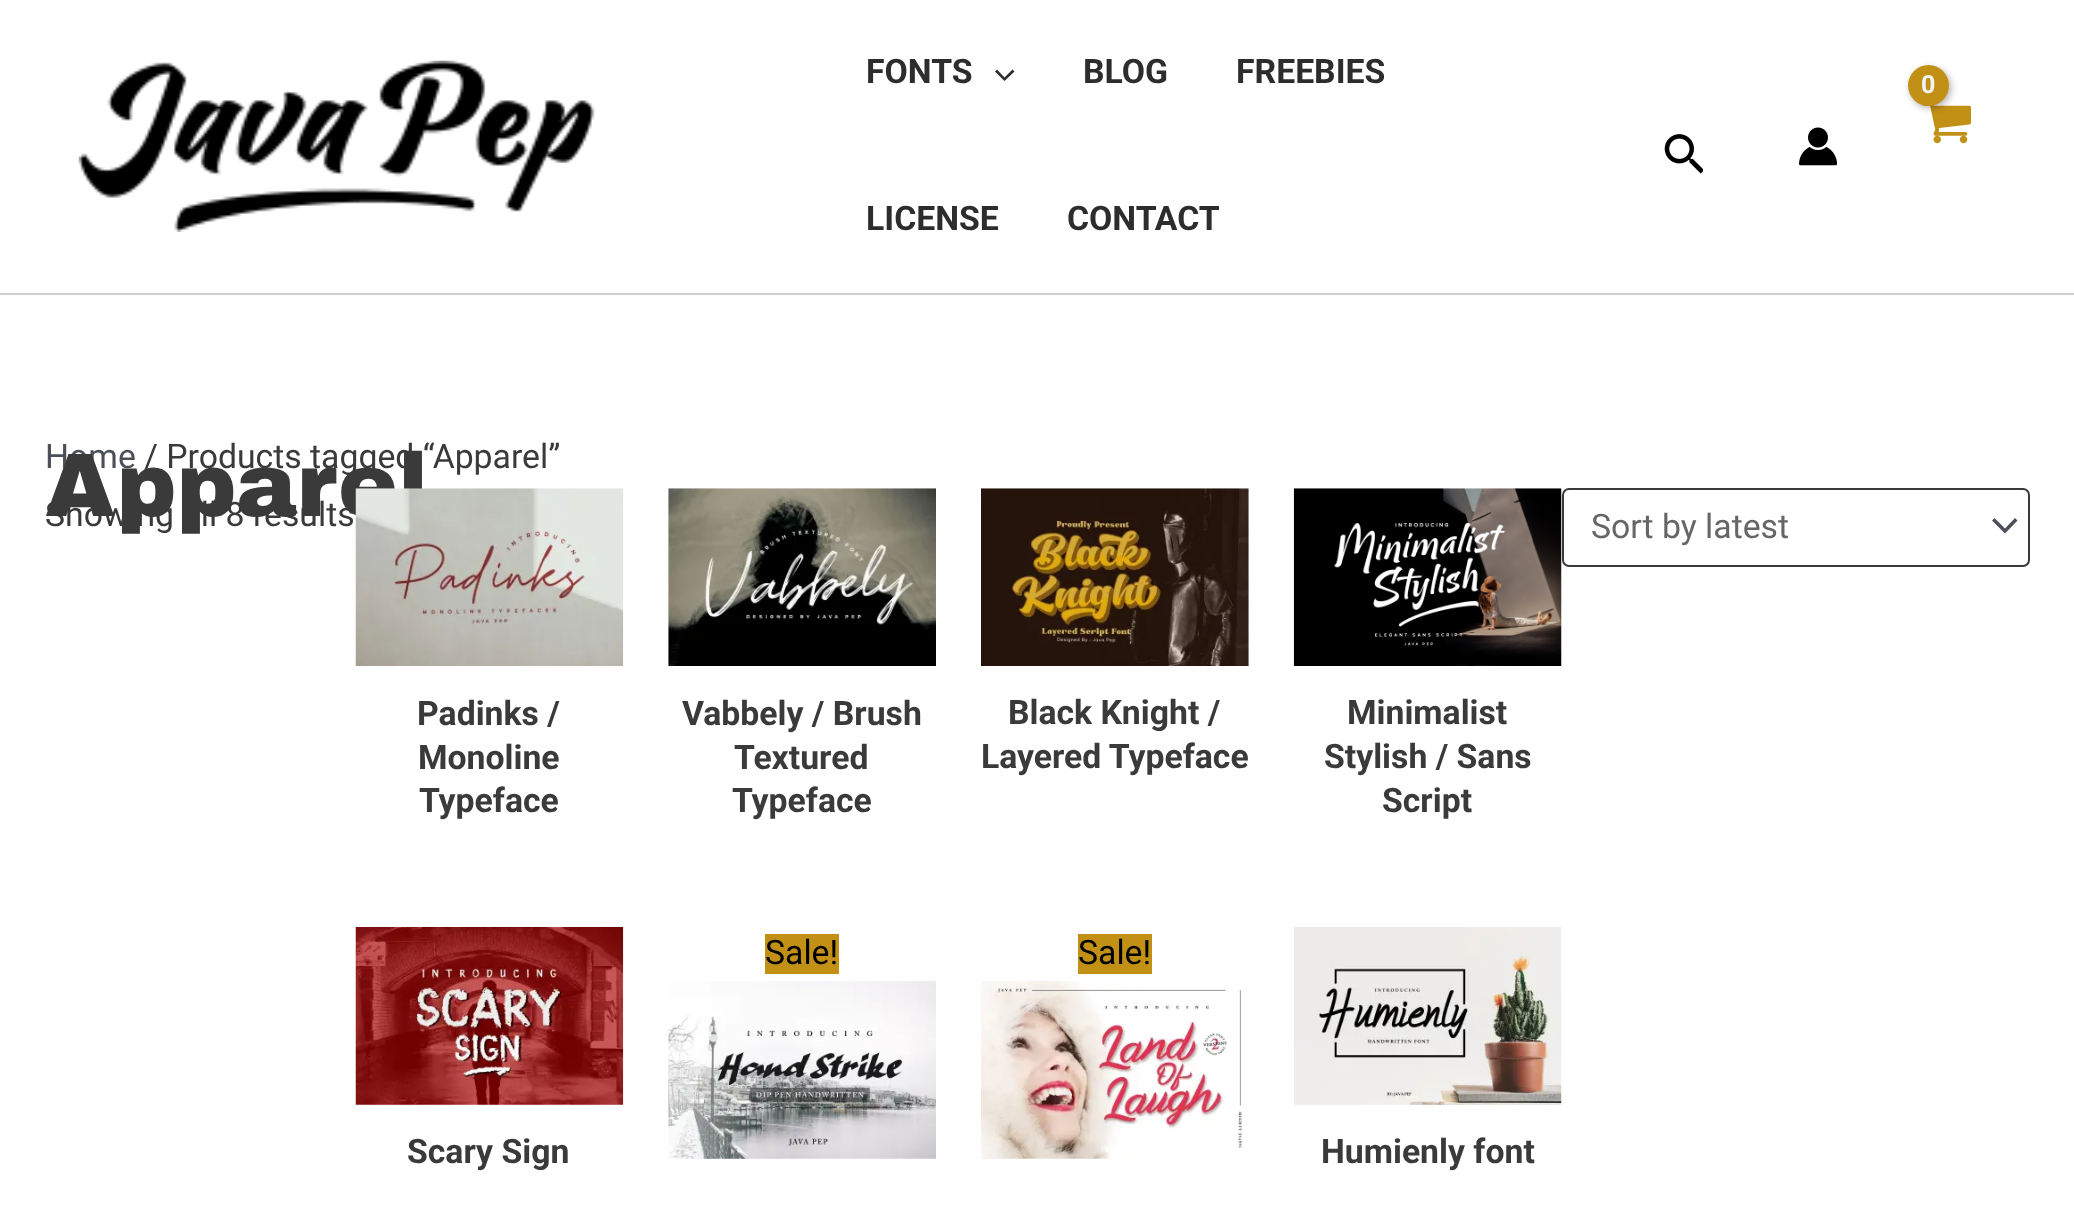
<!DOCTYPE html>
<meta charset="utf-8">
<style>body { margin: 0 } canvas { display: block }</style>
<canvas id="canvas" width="2074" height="1209"></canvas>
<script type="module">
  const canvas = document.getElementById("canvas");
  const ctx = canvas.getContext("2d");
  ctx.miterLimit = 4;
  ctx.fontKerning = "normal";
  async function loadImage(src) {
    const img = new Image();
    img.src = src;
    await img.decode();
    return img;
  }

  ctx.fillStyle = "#ffffff";
  ctx.fillRect(0, 0, 2074, 1209);
  ctx.fillStyle = "#cfcfcf";
  ctx.fillRect(0, 293, 2074, 2);
  ctx.drawImage(await loadImage("img1.png"), 78, 60, 517, 172);
  ctx.font = "bold 33.75px Roboto";
  ctx.fillStyle = "#2e2d2d";
  ctx.fillText("FONTS", 866, 83);
  ctx.beginPath();
  ctx.moveTo(995, 71.5);
  ctx.lineTo(1004.5, 81);
  ctx.lineTo(1014.5, 71.5);
  ctx.lineTo(1012.5, 69.5);
  ctx.lineTo(1004.5, 77.5);
  ctx.lineTo(997, 69.5);
  ctx.closePath();
  ctx.fill();
  ctx.fillText("BLOG", 1083, 83);
  ctx.fillText("FREEBIES", 1236, 83);
  ctx.fillText("LICENSE", 866, 230);
  ctx.fillText("CONTACT", 1067, 230);
  ctx.drawImage(await loadImage("img2.png"), 1922, 104, 50, 40);
  ctx.fillStyle = "rgba(0, 0, 0, 0.3)";
  ctx.filter = "blur(3.5px)";
  ctx.beginPath();
  ctx.roundRect(1910, 68, 41, 40, 20);
  ctx.fill();
  ctx.filter = "none";
  ctx.fillStyle = "#c29015";
  ctx.beginPath();
  ctx.arc(1928.5, 85.5, 20.5, 0, Math.PI * 2);
  ctx.fill();
  ctx.letterSpacing = "-1px";
  ctx.font = "bold 25px Roboto";
  ctx.fillStyle = "#f2f5f7";
  ctx.fillText("0", 1921, 93);
  ctx.drawImage(await loadImage("img3.png"), 1664, 134, 39, 40);
  ctx.drawImage(await loadImage("img4.png"), 1799, 127, 38, 39);
  ctx.letterSpacing = "0px";
  ctx.font = "33.75px Roboto";
  ctx.fillStyle = "#4b4f58";
  ctx.fillText("Home", 45, 468);
  ctx.fillStyle = "#3a3a3a";
  ctx.fillText("/ Products tagged “Apparel”", 144, 468);
  ctx.fillText("Showing all 8 results", 45, 526);
  ctx.font = "90px Archivo Black";
  ctx.fillText("Apparel", 45, 516);
  ctx.fillStyle = "#4b4f58";
  ctx.beginPath();
  ctx.moveTo(1992, 520.5);
  ctx.lineTo(2005, 533.5);
  ctx.lineTo(2017.5, 520.5);
  ctx.lineTo(2015, 518);
  ctx.lineTo(2005, 528.5);
  ctx.lineTo(1994.5, 518);
  ctx.closePath();
  ctx.fill();
  ctx.beginPath();
  ctx.roundRect(1563, 489, 466, 77, 6);
  ctx.strokeStyle = "#3a3a3a";
  ctx.lineWidth = 2;
  ctx.stroke();
  ctx.font = "33.75px Roboto";
  ctx.fillStyle = "#666666";
  ctx.fillText("Sort by latest", 1591, 538);
  ctx.drawImage(await loadImage("img5.png"), 355, 488, 269, 178);
  ctx.font = "bold 33.75px Roboto";
  ctx.fillStyle = "#3a3a3a";
  ctx.fillText("Padinks /", 417, 725);
  ctx.fillText("Monoline", 418, 769);
  ctx.fillText("Typeface", 419, 812);
  ctx.drawImage(await loadImage("img6.png"), 668, 488, 268, 178);
  ctx.fillText("Vabbely / Brush", 682, 725);
  ctx.fillText("Textured", 734, 769);
  ctx.fillText("Typeface", 732, 812);
  ctx.drawImage(await loadImage("img7.png"), 981, 488, 268, 178);
  ctx.fillText("Black Knight /", 1008, 724);
  ctx.fillText("Layered Typeface", 981, 768);
  ctx.drawImage(await loadImage("img8.png"), 1293, 488, 269, 178);
  ctx.fillText("Minimalist", 1347, 724);
  ctx.fillText("Stylish / Sans", 1324, 768);
  ctx.fillText("Script", 1382, 812);
  ctx.fillStyle = "#c29015";
  ctx.fillRect(765, 934, 74, 40);
  ctx.font = "33.75px Roboto";
  ctx.fillStyle = "#000000";
  ctx.fillText("Sale!", 765, 964);
  ctx.drawImage(await loadImage("img9.png"), 668, 981, 268, 178);
  ctx.fillStyle = "#c29015";
  ctx.fillRect(1078, 934, 74, 40);
  ctx.fillStyle = "#000000";
  ctx.fillText("Sale!", 1078, 964);
  ctx.drawImage(await loadImage("img10.png"), 981, 981, 261, 178);
  ctx.drawImage(await loadImage("img11.png"), 355, 927, 269, 178);
  ctx.font = "bold 33.75px Roboto";
  ctx.fillStyle = "#3a3a3a";
  ctx.fillText("Scary Sign", 407, 1163);
  ctx.drawImage(await loadImage("img12.png"), 1294, 927, 268, 178);
  ctx.fillText("Humienly font", 1321, 1163);
</script>
